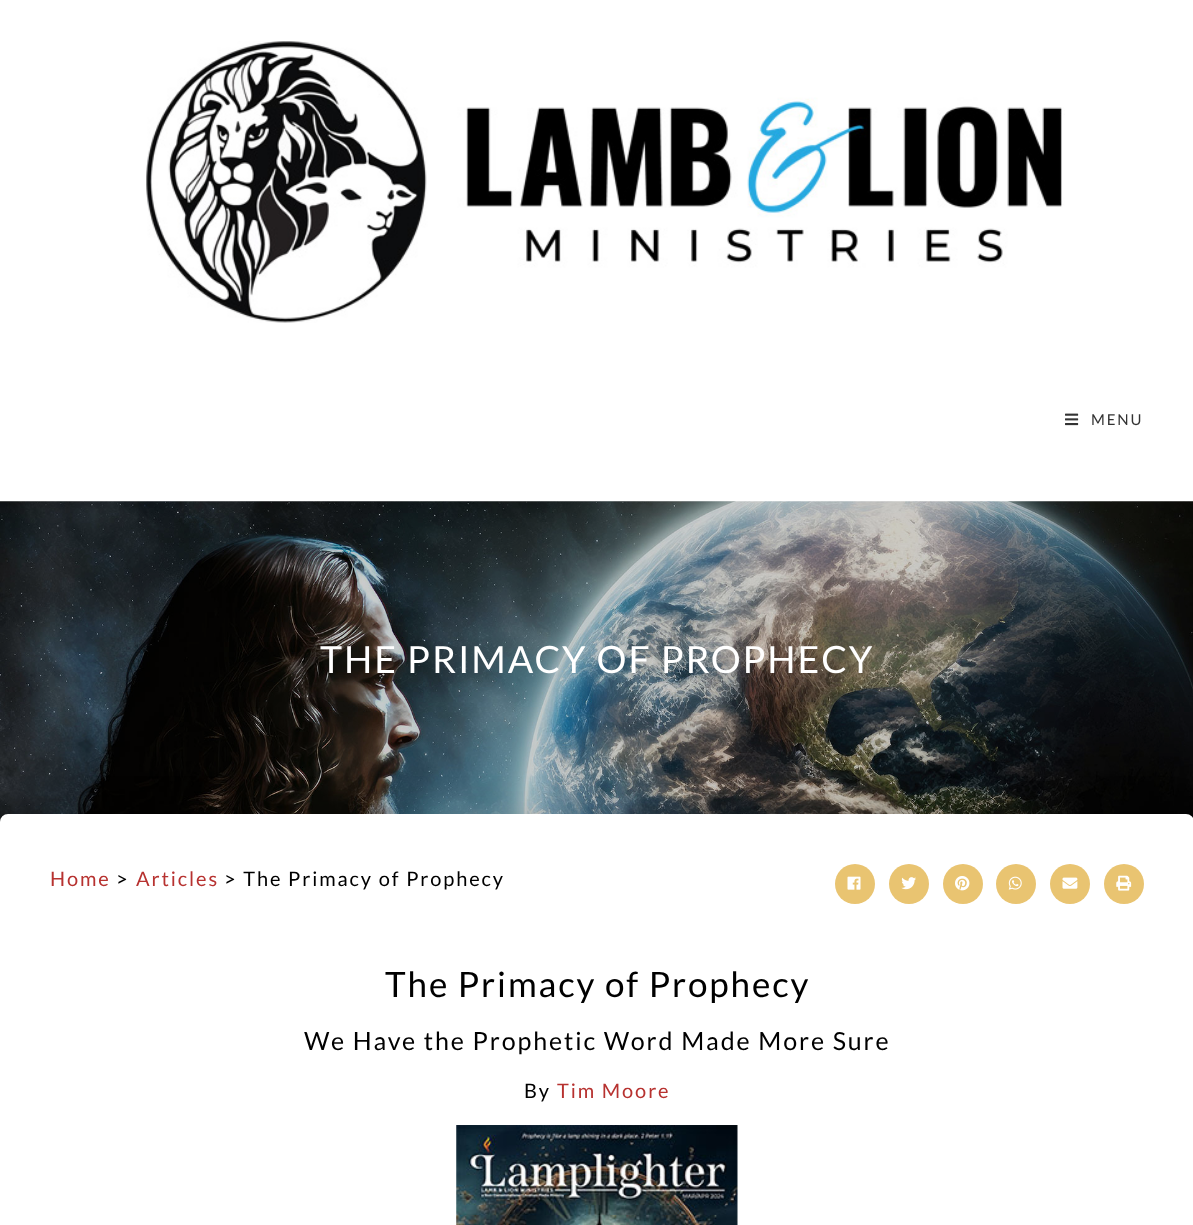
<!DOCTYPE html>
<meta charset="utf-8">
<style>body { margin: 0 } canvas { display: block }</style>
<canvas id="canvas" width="1193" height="1225"></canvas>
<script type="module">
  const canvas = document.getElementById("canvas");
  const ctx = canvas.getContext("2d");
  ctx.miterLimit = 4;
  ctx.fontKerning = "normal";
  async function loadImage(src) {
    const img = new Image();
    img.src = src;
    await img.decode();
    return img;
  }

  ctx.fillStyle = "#ffffff";
  ctx.fillRect(0, 0, 1193, 1225);
  ctx.drawImage(await loadImage("img1.png"), 146, 41, 919, 282);
  ctx.drawImage(await loadImage("img2.png"), 1065, 413, 14, 13);
  ctx.letterSpacing = "1.9px";
  ctx.font = "15px Lato";
  ctx.fillStyle = "#333333";
  ctx.fillText("MENU", 1091, 425);
  ctx.drawImage(await loadImage("img3.png"), 0, 501, 1193, 321);
  ctx.font = "37.5px Lato";
  ctx.fillStyle = "#ffffff";
  ctx.fillText("THE PRIMACY OF PROPHECY", 320, 673);
  ctx.fillStyle = "rgba(0, 0, 0, 0.13)";
  ctx.filter = "blur(19px)";
  ctx.beginPath();
  ctx.roundRect(0, 814, 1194, 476, 8);
  ctx.fill();
  ctx.filter = "none";
  ctx.fillStyle = "#ffffff";
  ctx.beginPath();
  ctx.roundRect(0, 814, 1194, 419, 8);
  ctx.fill();
  ctx.font = "20px Lato";
  ctx.fillStyle = "#b73230";
  ctx.fillText("Home", 50, 886);
  ctx.fillStyle = "#000000";
  ctx.fillText(">", 116, 886);
  ctx.fillStyle = "#b73230";
  ctx.fillText("Articles", 136, 886);
  ctx.fillStyle = "#000000";
  ctx.fillText("> The Primacy of Prophecy", 224, 886);
  ctx.fillStyle = "#e9c471";
  ctx.beginPath();
  ctx.arc(855, 884, 20, 0, Math.PI * 2);
  ctx.fill();
  ctx.drawImage(await loadImage("img4.png"), 847, 876, 14, 14);
  ctx.beginPath();
  ctx.arc(909, 884, 20, 0, Math.PI * 2);
  ctx.fill();
  ctx.drawImage(await loadImage("img5.png"), 901, 877, 15, 13);
  ctx.beginPath();
  ctx.arc(963, 884, 20, 0, Math.PI * 2);
  ctx.fill();
  ctx.drawImage(await loadImage("img6.png"), 955, 876, 15, 15);
  ctx.beginPath();
  ctx.arc(1016, 884, 20, 0, Math.PI * 2);
  ctx.fill();
  ctx.drawImage(await loadImage("img7.png"), 1008, 876, 14, 14);
  ctx.beginPath();
  ctx.arc(1070, 884, 20, 0, Math.PI * 2);
  ctx.fill();
  ctx.drawImage(await loadImage("img8.png"), 1062, 877, 16, 12);
  ctx.beginPath();
  ctx.arc(1124, 884, 20, 0, Math.PI * 2);
  ctx.fill();
  ctx.drawImage(await loadImage("img9.png"), 1116, 875, 16, 16);
  ctx.font = "35px Lato";
  ctx.fillStyle = "#000000";
  ctx.fillText("The Primacy of Prophecy", 385, 997);
  ctx.font = "25px Lato";
  ctx.fillText("We Have the Prophetic Word Made More Sure", 304, 1050);
  ctx.font = "20px Lato";
  ctx.fillText("By", 524, 1098);
  ctx.fillStyle = "#b73230";
  ctx.fillText("Tim Moore", 557, 1098);
  ctx.drawImage(await loadImage("img10.png"), 456, 1125, 282, 100);
</script>
